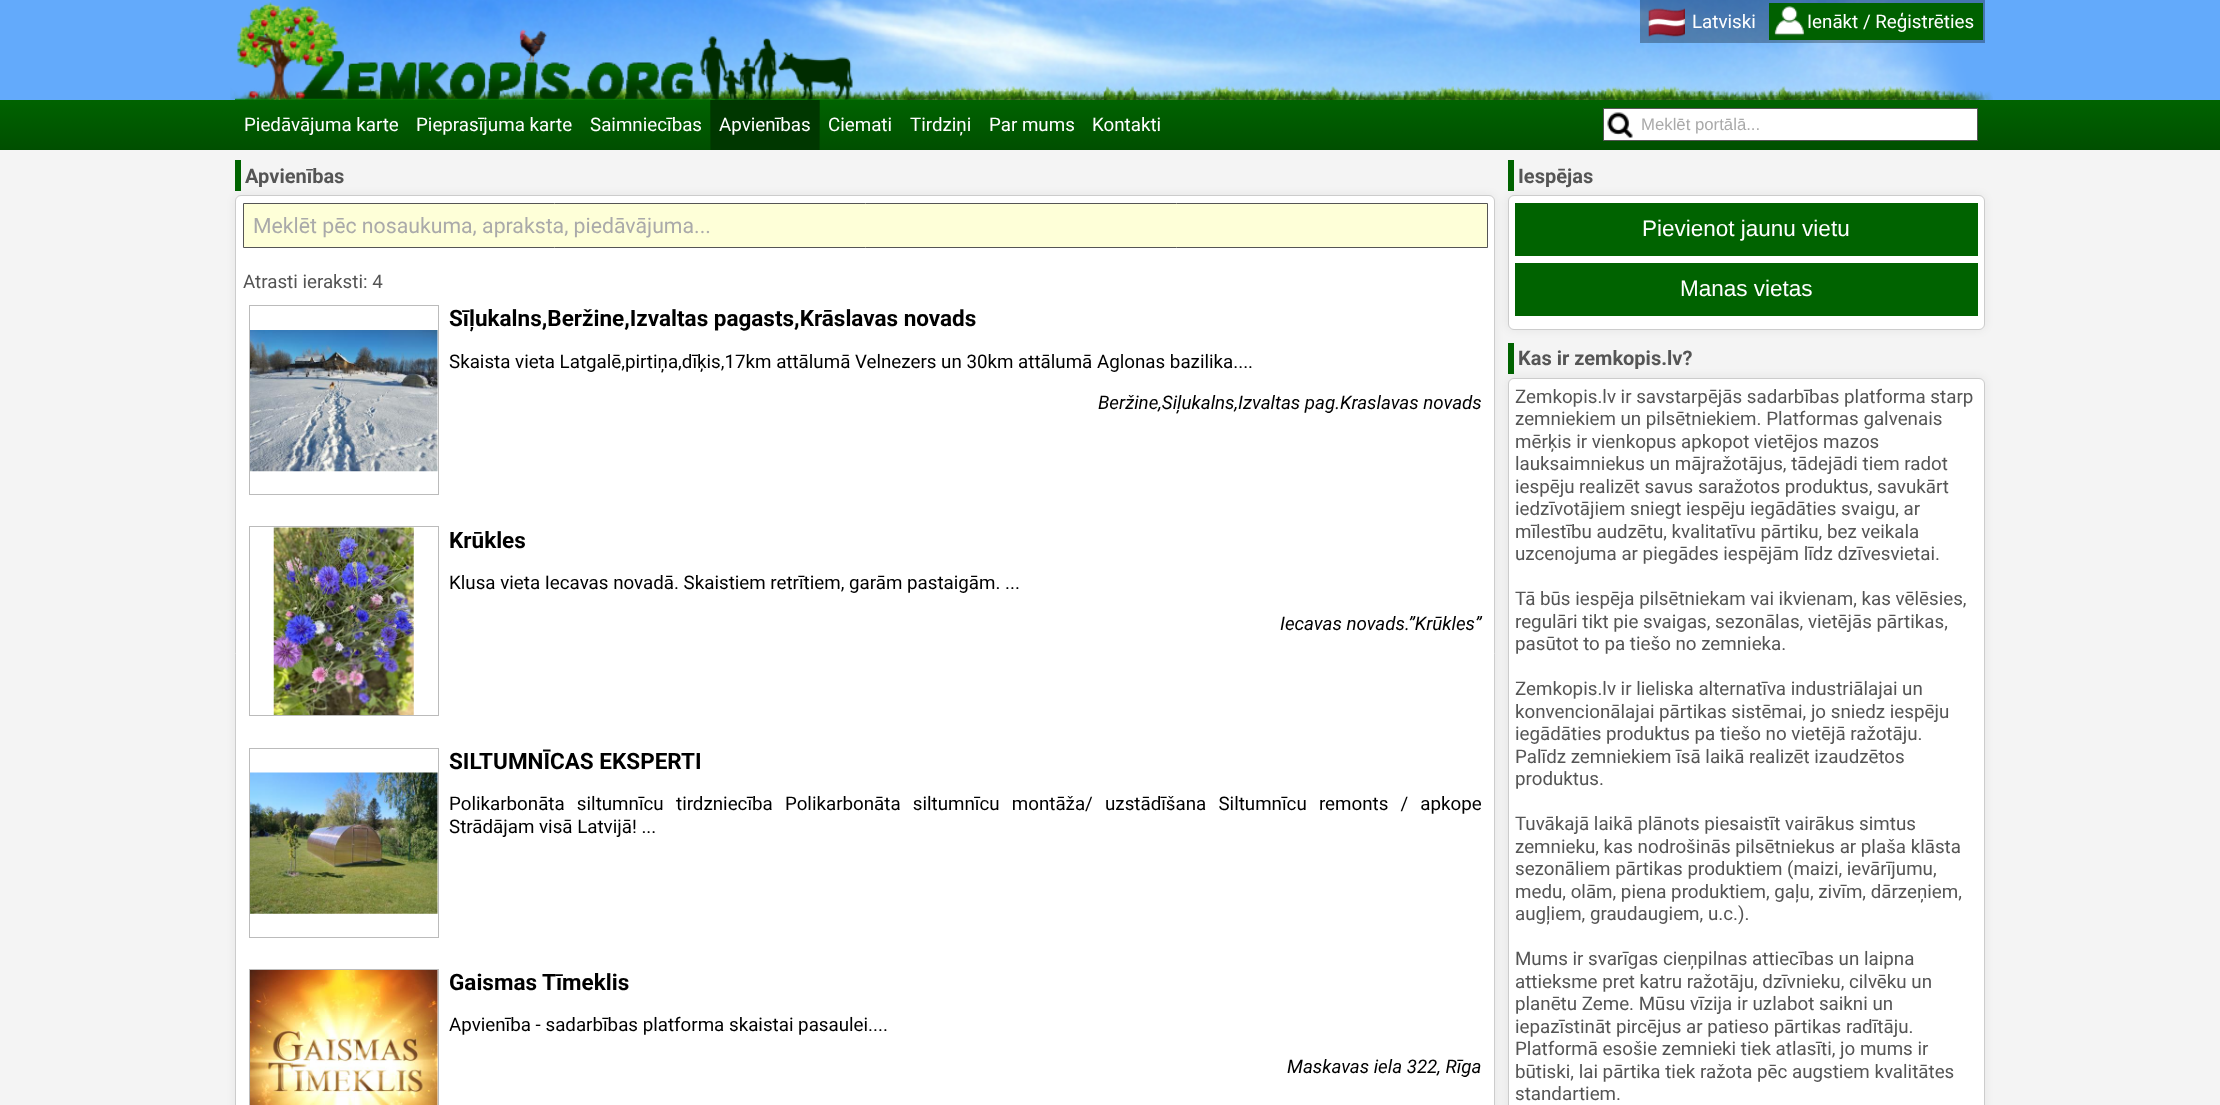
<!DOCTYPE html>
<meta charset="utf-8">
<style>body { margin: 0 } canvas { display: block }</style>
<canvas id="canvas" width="2220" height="1105"></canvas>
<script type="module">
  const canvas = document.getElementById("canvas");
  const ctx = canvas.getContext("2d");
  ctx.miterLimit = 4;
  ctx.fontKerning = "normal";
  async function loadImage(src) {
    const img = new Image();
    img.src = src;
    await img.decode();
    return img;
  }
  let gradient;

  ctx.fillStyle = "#f4f4f4";
  ctx.fillRect(0, 0, 2220, 1105);
  ctx.fillStyle = "#63aafb";
  ctx.fillRect(0, 0, 2220, 100);
  ctx.drawImage(await loadImage("img1.png"), 271, 0, 1695, 100);
  ctx.drawImage(await loadImage("img5.png"), 230, 86, 1763, 14);
  ctx.drawImage(await loadImage("img2.png"), 235, 2, 639, 98);
  ctx.fillStyle = "rgba(0, 0, 0, 0.3)";
  ctx.fillRect(1640, 0, 345, 43);
  ctx.drawImage(await loadImage("img3.png"), 1648, 8, 37, 29);
  ctx.font = "18.75px Roboto";
  ctx.fillStyle = "#ffffff";
  ctx.fillText("Latviski", 1692, 28);
  ctx.fillStyle = "#006100";
  ctx.fillRect(1769, 3, 214, 37);
  ctx.drawImage(await loadImage("img4.png"), 1774, 6, 31, 30);
  ctx.fillStyle = "#ffffff";
  ctx.fillText("Ienākt / Reģistrēties", 1807, 28);
  gradient = ctx.createLinearGradient(1110, 100, 1110, 150);
  gradient.addColorStop(0, "#006300");
  gradient.addColorStop(1, "#004f00");
  ctx.fillStyle = gradient;
  ctx.fillRect(0, 100, 2220, 50);
  ctx.fillStyle = "#ffffff";
  ctx.fillText("Piedāvājuma karte", 244, 131);
  ctx.fillText("Pieprasījuma karte", 416, 131);
  ctx.fillText("Saimniecības", 590, 131);
  ctx.fillStyle = "#003700";
  ctx.fillRect(711, 100, 108, 50);
  ctx.fillStyle = "#004200";
  ctx.fillRect(819, 100, 1, 50);
  ctx.fillRect(710, 100, 1, 50);
  ctx.fillStyle = "#ffffff";
  ctx.fillText("Apvienības", 719, 131);
  ctx.fillText("Ciemati", 828, 131);
  ctx.fillText("Tirdziņi", 910, 131);
  ctx.fillText("Par mums", 989, 131);
  ctx.fillText("Kontakti", 1092, 131);
  ctx.fillRect(1604, 109, 373, 31);
  ctx.drawImage(await loadImage("img6.png"), 1607, 112, 26, 26);
  ctx.strokeStyle = "#555555";
  ctx.strokeRect(1603.5, 108.5, 374, 32);
  ctx.font = "16.75px Liberation Sans";
  ctx.fillStyle = "#aaaaaa";
  ctx.fillText("Meklēt portālā...", 1641, 130);
  ctx.fillStyle = "#006300";
  ctx.fillRect(235, 160, 6, 31);
  ctx.fillStyle = "rgba(0, 0, 0, 0.05)";
  ctx.filter = "blur(4.5px)";
  ctx.beginPath();
  ctx.roundRect(234, 194, 1262, 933, 8);
  ctx.fill();
  ctx.filter = "none";
  ctx.font = "bold 20px Roboto";
  ctx.fillStyle = "#555555";
  ctx.fillText("Apvienības", 245, 183);
  ctx.fillStyle = "#ffffff";
  ctx.beginPath();
  ctx.roundRect(235.5, 195.5, 1259, 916, 5.5);
  ctx.fill();
  ctx.strokeStyle = "#cccccc";
  ctx.stroke();
  ctx.fillStyle = "#feffd8";
  ctx.beginPath();
  ctx.rect(243.5, 203.5, 1244, 44);
  ctx.fill();
  ctx.strokeStyle = "#555555";
  ctx.stroke();
  ctx.font = "21.25px Roboto";
  ctx.fillStyle = "#aaaaaa";
  ctx.fillText("Meklēt pēc nosaukuma, apraksta, piedāvājuma...", 253, 233);
  ctx.font = "18.75px Roboto";
  ctx.fillStyle = "#555555";
  ctx.fillText("Atrasti ieraksti: 4", 243, 288);
  ctx.drawImage(await loadImage("img7.png"), 250, 330, 188, 142);
  ctx.strokeStyle = "#bbbbbb";
  ctx.strokeRect(249.5, 305.5, 189, 189);
  ctx.font = "bold 22.5px Roboto";
  ctx.fillStyle = "#000000";
  ctx.fillText("Sīļukalns,Beržine,Izvaltas pagasts,Krāslavas novads", 449, 326);
  ctx.font = "18.75px Roboto";
  ctx.fillText("Skaista vieta Latgalē,pirtiņa,dīķis,17km attālumā Velnezers un 30km attālumā Aglonas bazilika....", 449, 368);
  ctx.font = "italic 18.75px Roboto";
  ctx.fillText("Beržine,Siļukalns,Izvaltas pag.Kraslavas novads", 1098, 409);
  ctx.drawImage(await loadImage("img8.png"), 273, 527, 141, 188);
  ctx.strokeRect(249.5, 526.5, 189, 189);
  ctx.font = "bold 22.5px Roboto";
  ctx.fillText("Krūkles", 449, 548);
  ctx.font = "18.75px Roboto";
  ctx.fillText("Klusa vieta Iecavas novadā. Skaistiem retrītiem, garām pastaigām. ...", 449, 589);
  ctx.font = "italic 18.75px Roboto";
  ctx.fillText("Iecavas novads.”Krūkles”", 1280, 630);
  ctx.drawImage(await loadImage("img9.png"), 250, 772, 188, 142);
  ctx.strokeRect(249.5, 748.5, 189, 189);
  ctx.font = "bold 22.5px Roboto";
  ctx.fillText("SILTUMNĪCAS EKSPERTI", 449, 769);
  ctx.wordSpacing = "7.5px";
  ctx.font = "18.75px Roboto";
  ctx.fillText("Polikarbonāta siltumnīcu", 449, 810);
  ctx.fillText("tirdzniecība Polikarbonāta siltumnīcu montāža/ uzstādīšana Siltumnīcu remonts / apkope", 676, 810);
  ctx.wordSpacing = "0px";
  ctx.fillText("Strādājam visā Latvijā! ...", 449, 833);
  ctx.drawImage(await loadImage("img10.png"), 250, 970, 188, 135);
  ctx.strokeRect(249.5, 969.5, 189, 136);
  ctx.font = "bold 22.5px Roboto";
  ctx.fillText("Gaismas Tīmeklis", 449, 990);
  ctx.font = "18.75px Roboto";
  ctx.fillText("Apvienība - sadarbības platforma skaistai pasaulei....", 449, 1031);
  ctx.font = "italic 18.75px Roboto";
  ctx.fillText("Maskavas iela 322, Rīga", 1287, 1073);
  ctx.fillStyle = "#006300";
  ctx.fillRect(1508, 160, 6, 31);
  ctx.fillStyle = "rgba(0, 0, 0, 0.05)";
  ctx.filter = "blur(4.5px)";
  ctx.beginPath();
  ctx.roundRect(1506, 194, 480, 137, 8);
  ctx.fill();
  ctx.filter = "none";
  ctx.font = "bold 20px Roboto";
  ctx.fillStyle = "#555555";
  ctx.fillText("Iespējas", 1518, 183);
  ctx.fillStyle = "#ffffff";
  ctx.beginPath();
  ctx.roundRect(1508.5, 195.5, 476, 134, 5.5);
  ctx.fill();
  ctx.strokeStyle = "#cccccc";
  ctx.stroke();
  ctx.fillStyle = "#006300";
  ctx.fillRect(1515, 203, 463, 53);
  ctx.font = "22.5px Liberation Sans";
  ctx.fillStyle = "#ffffff";
  ctx.fillText("Pievienot jaunu vietu", 1642, 236);
  ctx.fillStyle = "#006300";
  ctx.fillRect(1515, 263, 463, 53);
  ctx.fillStyle = "#ffffff";
  ctx.fillText("Manas vietas", 1680, 296);
  ctx.fillStyle = "#006300";
  ctx.fillRect(1508, 343, 6, 31);
  ctx.fillStyle = "rgba(0, 0, 0, 0.05)";
  ctx.filter = "blur(4.5px)";
  ctx.beginPath();
  ctx.roundRect(1506, 376, 480, 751, 8);
  ctx.fill();
  ctx.filter = "none";
  ctx.font = "bold 20px Roboto";
  ctx.fillStyle = "#555555";
  ctx.fillText("Kas ir zemkopis.lv?", 1518, 365);
  ctx.fillStyle = "#ffffff";
  ctx.beginPath();
  ctx.roundRect(1508.5, 378.5, 476, 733, 5.5);
  ctx.fill();
  ctx.stroke();
  ctx.font = "18.75px Roboto";
  ctx.fillStyle = "#555555";
  ctx.fillText("Zemkopis.lv ir savstarpējās sadarbības platforma starp", 1515, 403);
  ctx.fillText("zemniekiem un pilsētniekiem. Platformas galvenais", 1515, 425);
  ctx.fillText("mērķis ir vienkopus apkopot vietējos mazos", 1515, 448);
  ctx.fillText("lauksaimniekus un mājražotājus, tādejādi tiem radot", 1515, 470);
  ctx.fillText("iespēju realizēt savus saražotos produktus, savukārt", 1515, 493);
  ctx.fillText("iedzīvotājiem sniegt iespēju iegādāties svaigu, ar", 1515, 515);
  ctx.fillText("mīlestību audzētu, kvalitatīvu pārtiku, bez veikala", 1515, 538);
  ctx.fillText("uzcenojuma ar piegādes iespējām līdz dzīvesvietai.", 1515, 560);
  ctx.fillText("Tā būs iespēja pilsētniekam vai ikvienam, kas vēlēsies,", 1515, 605);
  ctx.fillText("regulāri tikt pie svaigas, sezonālas, vietējās pārtikas,", 1515, 628);
  ctx.fillText("pasūtot to pa tiešo no zemnieka.", 1515, 650);
  ctx.fillText("Zemkopis.lv ir lieliska alternatīva industriālajai un", 1515, 695);
  ctx.fillText("konvencionālajai pārtikas sistēmai, jo sniedz iespēju", 1515, 718);
  ctx.fillText("iegādāties produktus pa tiešo no vietējā ražotāju.", 1515, 740);
  ctx.fillText("Palīdz zemniekiem īsā laikā realizēt izaudzētos", 1515, 763);
  ctx.fillText("produktus.", 1515, 785);
  ctx.fillText("Tuvākajā laikā plānots piesaistīt vairākus simtus", 1515, 830);
  ctx.fillText("zemnieku, kas nodrošinās pilsētniekus ar plaša klāsta", 1515, 853);
  ctx.fillText("sezonāliem pārtikas produktiem (maizi, ievārījumu,", 1515, 875);
  ctx.fillText("medu, olām, piena produktiem, gaļu, zivīm, dārzeņiem,", 1515, 898);
  ctx.fillText("augļiem, graudaugiem, u.c.).", 1515, 920);
  ctx.fillText("Mums ir svarīgas cieņpilnas attiecības un laipna", 1515, 965);
  ctx.fillText("attieksme pret katru ražotāju, dzīvnieku, cilvēku un", 1515, 988);
  ctx.fillText("planētu Zeme. Mūsu vīzija ir uzlabot saikni un", 1515, 1010);
  ctx.fillText("iepazīstināt pircējus ar patieso pārtikas radītāju.", 1515, 1033);
  ctx.fillText("Platformā esošie zemnieki tiek atlasīti, jo mums ir", 1515, 1055);
  ctx.fillText("būtiski, lai pārtika tiek ražota pēc augstiem kvalitātes", 1515, 1078);
  ctx.fillText("standartiem.", 1515, 1100);
</script>
